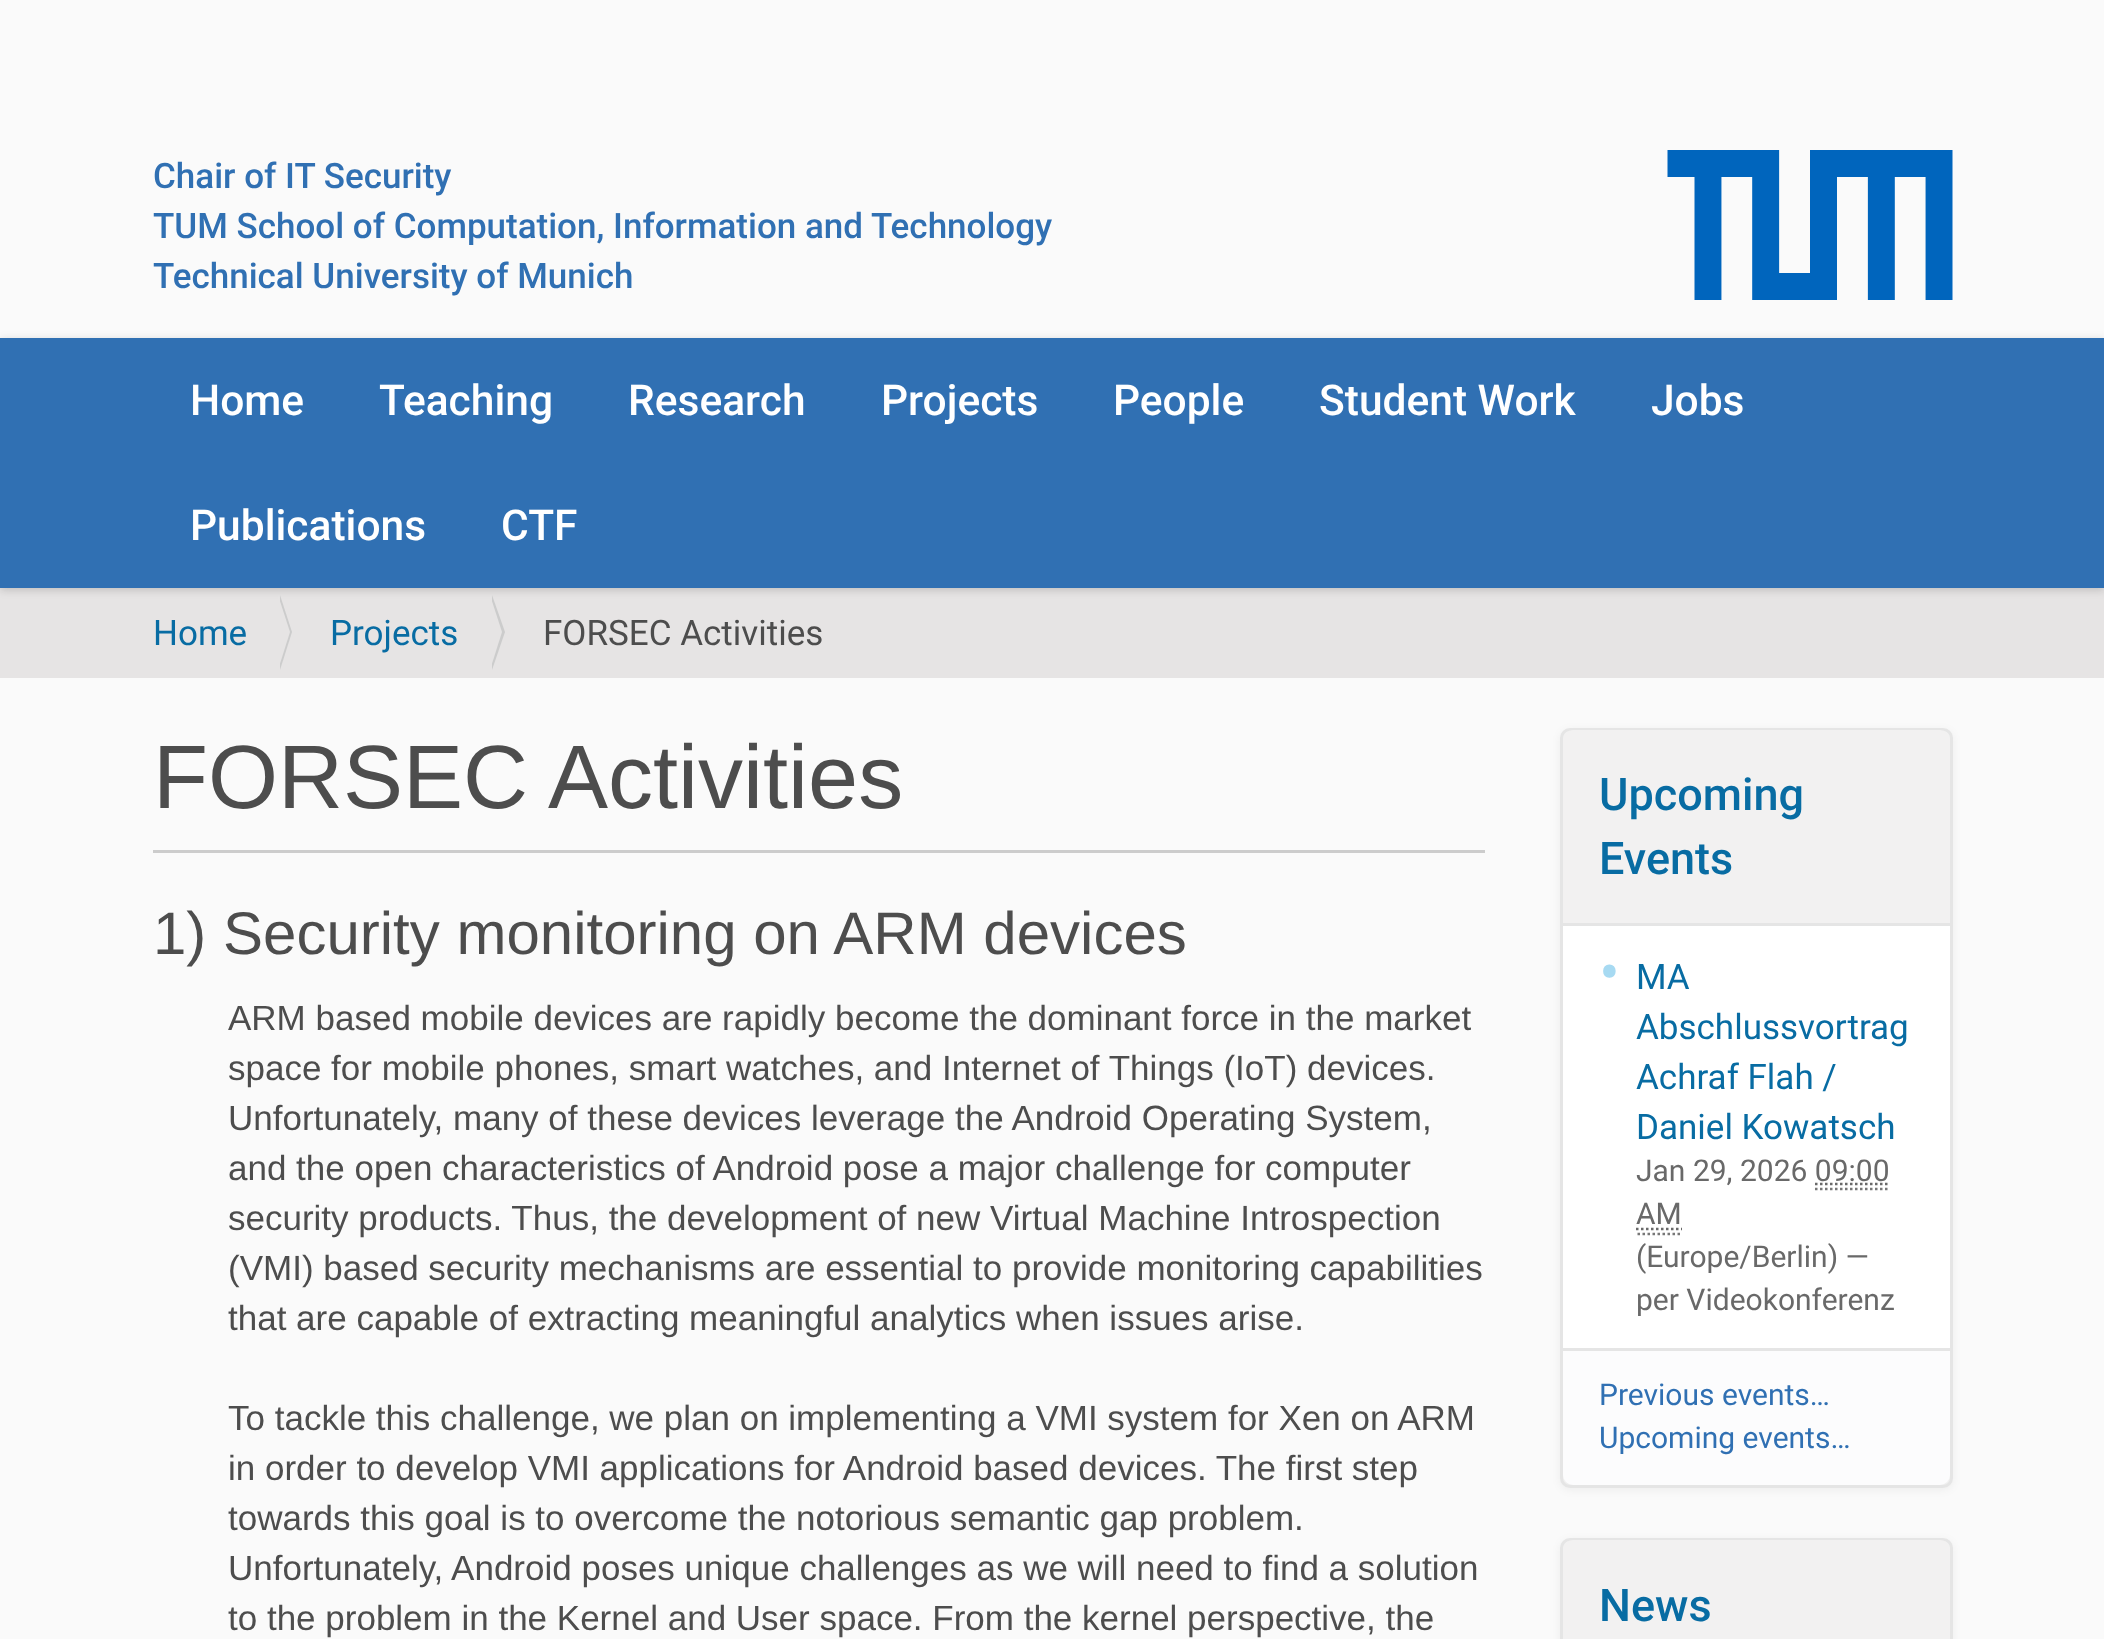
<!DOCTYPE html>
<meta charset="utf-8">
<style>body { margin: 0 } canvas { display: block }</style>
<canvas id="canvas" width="2104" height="1639"></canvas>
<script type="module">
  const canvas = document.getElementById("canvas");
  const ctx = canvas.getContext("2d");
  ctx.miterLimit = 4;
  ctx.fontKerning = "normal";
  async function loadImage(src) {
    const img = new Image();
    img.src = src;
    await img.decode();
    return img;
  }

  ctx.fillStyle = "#fafafa";
  ctx.fillRect(0, 0, 2104, 1639);
  ctx.font = "500 35px Roboto";
  ctx.fillStyle = "#3070b3";
  ctx.fillText("Chair of IT Security", 153, 188);
  ctx.fillText("TUM School of Computation, Information and Technology", 153, 238);
  ctx.fillText("Technical University of Munich", 153, 288);
  ctx.drawImage(await loadImage("img1.png"), 1667, 150, 286, 150);
  ctx.fillStyle = "#e6e4e4";
  ctx.fillRect(0, 588, 2104, 90);
  ctx.fillStyle = "rgba(0, 0, 0, 0.17)";
  ctx.filter = "blur(4px)";
  ctx.beginPath();
  ctx.rect(0, 340, 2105, 250);
  ctx.fill();
  ctx.filter = "none";
  ctx.fillStyle = "#3070b3";
  ctx.fillRect(0, 338, 2104, 250);
  ctx.font = "500 42.5px Roboto";
  ctx.fillStyle = "#ffffff";
  ctx.fillText("Home", 190, 415);
  ctx.fillText("Teaching", 379, 415);
  ctx.fillText("Research", 628, 415);
  ctx.fillText("Projects", 881, 415);
  ctx.fillText("People", 1113, 415);
  ctx.fillText("Student Work", 1319, 415);
  ctx.fillText("Jobs", 1651, 415);
  ctx.fillText("Publications", 190, 540);
  ctx.fillText("CTF", 501, 540);
  ctx.font = "35px Roboto";
  ctx.fillStyle = "#086ca3";
  ctx.fillText("Home", 153, 645);
  ctx.fillStyle = "#cccccc";
  ctx.beginPath();
  ctx.moveTo(280, 670);
  ctx.lineTo(280, 595);
  ctx.lineTo(292, 632);
  ctx.closePath();
  ctx.fill();
  ctx.fillStyle = "#e6e4e4";
  ctx.beginPath();
  ctx.moveTo(278, 670);
  ctx.lineTo(278, 595);
  ctx.lineTo(290, 632);
  ctx.closePath();
  ctx.fill();
  ctx.fillStyle = "#086ca3";
  ctx.fillText("Projects", 330, 645);
  ctx.fillStyle = "#cccccc";
  ctx.beginPath();
  ctx.moveTo(492, 670);
  ctx.lineTo(492, 595);
  ctx.lineTo(505, 632);
  ctx.closePath();
  ctx.fill();
  ctx.fillStyle = "#e6e4e4";
  ctx.beginPath();
  ctx.moveTo(490, 670);
  ctx.lineTo(490, 595);
  ctx.lineTo(502, 632);
  ctx.closePath();
  ctx.fill();
  ctx.fillStyle = "#4d4d4d";
  ctx.fillText("FORSEC Activities", 543, 645);
  ctx.fillStyle = "#cccccc";
  ctx.fillRect(153, 850, 1332, 3);
  ctx.font = "90px Liberation Sans";
  ctx.fillStyle = "#4d4d4d";
  ctx.fillText("FORSEC Activities", 153, 808);
  ctx.font = "60px Liberation Sans";
  ctx.fillText("1) Security monitoring on ARM devices", 153, 954);
  ctx.font = "35px Liberation Sans";
  ctx.fillText("ARM based mobile devices are rapidly become the dominant force in the market", 228, 1030);
  ctx.fillText("space for mobile phones, smart watches, and Internet of Things (IoT) devices.", 228, 1080);
  ctx.fillText("Unfortunately, many of these devices leverage the Android Operating System,", 228, 1130);
  ctx.fillText("and the open characteristics of Android pose a major challenge for computer", 228, 1180);
  ctx.fillText("security products. Thus, the development of new Virtual Machine Introspection", 228, 1230);
  ctx.fillText("(VMI) based security mechanisms are essential to provide monitoring capabilities", 228, 1280);
  ctx.fillText("that are capable of extracting meaningful analytics when issues arise.", 228, 1330);
  ctx.fillText("To tackle this challenge, we plan on implementing a VMI system for Xen on ARM", 228, 1430);
  ctx.fillText("in order to develop VMI applications for Android based devices. The first step", 228, 1480);
  ctx.fillText("towards this goal is to overcome the notorious semantic gap problem.", 228, 1530);
  ctx.fillText("Unfortunately, Android poses unique challenges as we will need to find a solution", 228, 1580);
  ctx.fillText("to the problem in the Kernel and User space. From the kernel perspective, the", 228, 1630);
  ctx.fillStyle = "rgba(0, 0, 0, 0.05)";
  ctx.filter = "blur(4px)";
  ctx.beginPath();
  ctx.roundRect(1560, 730, 393, 760, 10);
  ctx.fill();
  ctx.filter = "none";
  ctx.beginPath();
  ctx.roundRect(1561.5, 729.5, 390, 757, 8.5);
  ctx.strokeStyle = "#e5e5e5";
  ctx.lineWidth = 3;
  ctx.stroke();
  ctx.fillStyle = "#f2f1f1";
  ctx.beginPath();
  ctx.roundRect(1563, 730, 387, 193, [10, 10, 0, 0]);
  ctx.fill();
  ctx.font = "500 45px Roboto";
  ctx.fillStyle = "#086ca3";
  ctx.fillText("Upcoming", 1599, 810);
  ctx.fillText("Events", 1599, 874);
  ctx.fillStyle = "#ffffff";
  ctx.fillRect(1563, 926, 387, 422);
  ctx.fillStyle = "#e5e5e5";
  ctx.fillRect(1563, 923, 387, 3);
  ctx.font = "62px Roboto";
  ctx.fillStyle = "#a7daf2";
  ctx.fillText("•", 1599, 994);
  ctx.font = "35px Roboto";
  ctx.fillStyle = "#086ca3";
  ctx.fillText("MA", 1636, 989);
  ctx.fillText("Abschlussvortrag", 1636, 1039);
  ctx.fillText("Achraf Flah /", 1636, 1089);
  ctx.fillText("Daniel Kowatsch", 1636, 1139);
  ctx.font = "30px Roboto";
  ctx.fillStyle = "#696969";
  ctx.fillText("Jan 29, 2026 09:00", 1636, 1181);
  ctx.fillText("AM", 1636, 1224);
  ctx.beginPath();
  ctx.moveTo(1815, 1189);
  ctx.lineTo(1890, 1189);
  ctx.strokeStyle = "#777777";
  ctx.lineWidth = 2.5;
  ctx.setLineDash([2.5, 2.5]);
  ctx.stroke();
  ctx.beginPath();
  ctx.moveTo(1637.5, 1234);
  ctx.lineTo(1682.5, 1234);
  ctx.stroke();
  ctx.beginPath();
  ctx.moveTo(1815, 1184);
  ctx.lineTo(1890, 1184);
  ctx.strokeStyle = "#696969";
  ctx.stroke();
  ctx.beginPath();
  ctx.moveTo(1636, 1229);
  ctx.lineTo(1682, 1229);
  ctx.stroke();
  ctx.fillText("(Europe/Berlin) —", 1636, 1267);
  ctx.fillText("per Videokonferenz", 1636, 1310);
  ctx.fillStyle = "#fcfcfd";
  ctx.beginPath();
  ctx.roundRect(1563, 1348, 387, 137, [0, 0, 10, 10]);
  ctx.fill();
  ctx.fillStyle = "#e5e5e5";
  ctx.fillRect(1563, 1348, 387, 3);
  ctx.fillStyle = "#3070b3";
  ctx.fillText("Previous events…", 1599, 1405);
  ctx.fillText("Upcoming events…", 1599, 1448);
  ctx.fillStyle = "rgba(0, 0, 0, 0.05)";
  ctx.filter = "blur(4px)";
  ctx.beginPath();
  ctx.roundRect(1560, 1540, 393, 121, 10);
  ctx.fill();
  ctx.filter = "none";
  ctx.beginPath();
  ctx.roundRect(1561.5, 1539.5, 390, 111, 8.5);
  ctx.strokeStyle = "#e5e5e5";
  ctx.lineWidth = 3;
  ctx.setLineDash([]);
  ctx.stroke();
  ctx.fillStyle = "#f2f1f1";
  ctx.beginPath();
  ctx.moveTo(1573, 1540);
  ctx.lineTo(1940, 1540);
  ctx.bezierCurveTo(1945.5, 1540, 1950, 1544.5, 1950, 1550);
  ctx.lineTo(1950, 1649);
  ctx.lineTo(1563, 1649);
  ctx.lineTo(1563, 1550);
  ctx.bezierCurveTo(1563, 1544.5, 1567.5, 1540, 1573, 1540);
  ctx.closePath();
  ctx.fill();
  ctx.font = "500 45px Roboto";
  ctx.fillStyle = "#086ca3";
  ctx.fillText("News", 1599, 1621);
</script>
